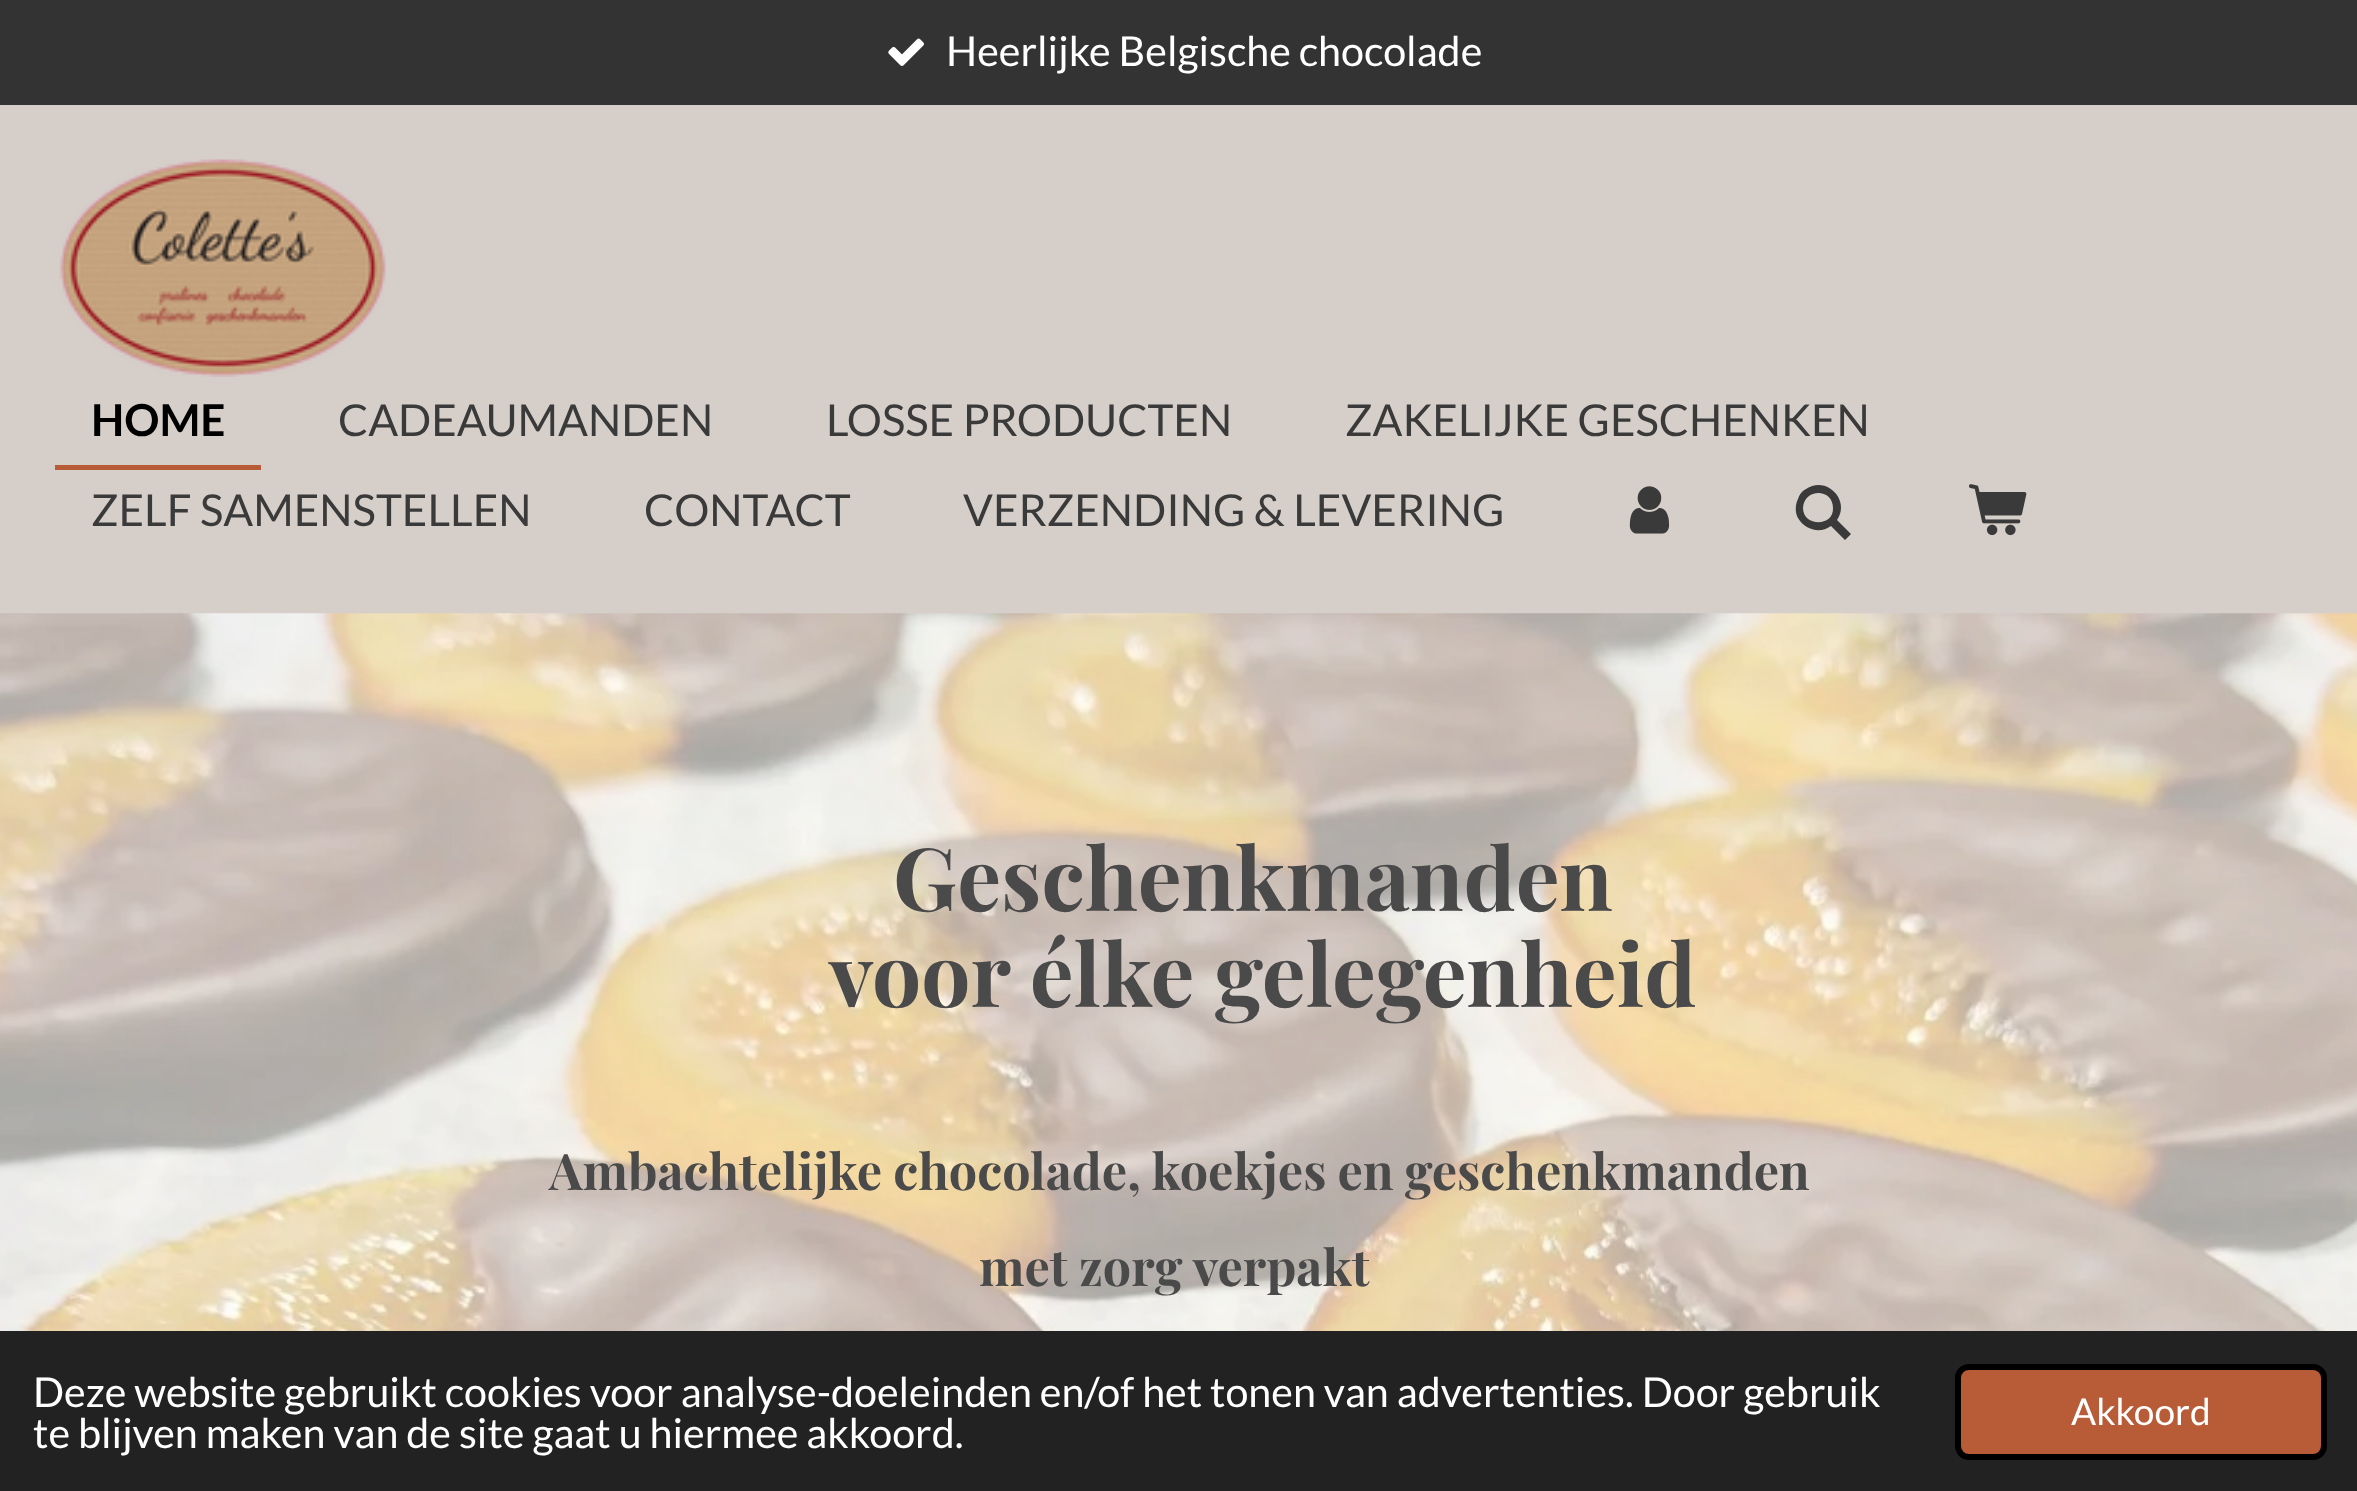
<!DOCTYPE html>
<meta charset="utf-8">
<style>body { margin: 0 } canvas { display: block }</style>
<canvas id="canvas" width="2357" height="1491"></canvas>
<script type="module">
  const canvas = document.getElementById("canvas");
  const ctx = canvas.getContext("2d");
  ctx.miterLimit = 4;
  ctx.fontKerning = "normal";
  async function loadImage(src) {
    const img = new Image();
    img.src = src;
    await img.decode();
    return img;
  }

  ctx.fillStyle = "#d6cfc9";
  ctx.fillRect(0, 0, 2357, 1491);
  ctx.fillStyle = "#333333";
  ctx.fillRect(0, 0, 2357, 105);
  ctx.drawImage(await loadImage("img1.png"), 888, 38, 36, 28);
  ctx.font = "41.25px Lato";
  ctx.fillStyle = "#ffffff";
  ctx.fillText("Heerlijke Belgische chocolade", 946, 66);
  ctx.drawImage(await loadImage("img2.png"), 59, 159, 327, 218);
  ctx.fillStyle = "#b85c38";
  ctx.fillRect(55, 465, 206, 5);
  ctx.font = "bold 44px Lato";
  ctx.fillStyle = "#000000";
  ctx.fillText("HOME", 91, 436);
  ctx.font = "44px Lato";
  ctx.fillStyle = "#3a3a3a";
  ctx.fillText("CADEAUMANDEN", 338, 436);
  ctx.fillText("LOSSE PRODUCTEN", 826, 436);
  ctx.fillText("ZAKELIJKE GESCHENKEN", 1345, 436);
  ctx.fillText("ZELF SAMENSTELLEN", 91, 526);
  ctx.fillText("CONTACT", 644, 526);
  ctx.fillText("VERZENDING & LEVERING", 963, 526);
  ctx.drawImage(await loadImage("img3.png"), 1629, 486, 41, 48);
  ctx.beginPath();
  ctx.moveTo(1837, 520);
  ctx.lineTo(1851, 534);
  ctx.lineTo(1845, 540);
  ctx.lineTo(1831, 526);
  ctx.bezierCurveTo(1820, 534, 1805, 530, 1798, 518);
  ctx.bezierCurveTo(1795, 513, 1795, 505, 1798, 499);
  ctx.bezierCurveTo(1799, 495, 1802, 491, 1806, 489);
  ctx.bezierCurveTo(1826, 475, 1851, 500, 1837, 520);
  ctx.closePath();
  ctx.moveTo(1833, 508);
  ctx.bezierCurveTo(1833, 488, 1804, 488, 1803, 508);
  ctx.bezierCurveTo(1803, 527, 1834, 527, 1833, 508);
  ctx.closePath();
  ctx.fill();
  ctx.drawImage(await loadImage("img4.png"), 1969, 484, 58, 52);
  ctx.drawImage(await loadImage("img5.png"), 0, 613, 2357, 718);
  ctx.font = "bold 87.25px Playfair Display";
  ctx.fillStyle = "#4a4a4a";
  ctx.fillText("Geschenkmanden", 893, 911);
  ctx.fillText("voor élke gelegenheid", 829, 1007);
  ctx.wordSpacing = "-0.5px";
  ctx.font = "bold 50.3px Playfair Display";
  ctx.fillText("Ambachtelijke chocolade, koekjes en geschenkmanden", 549, 1190);
  ctx.wordSpacing = "0px";
  ctx.fillText("met zorg verpakt", 979, 1286);
  ctx.fillStyle = "#222222";
  ctx.fillRect(0, 1331, 2357, 160);
  ctx.font = "41.25px Lato";
  ctx.fillStyle = "#ffffff";
  ctx.fillText("Deze website gebruikt cookies voor analyse-doeleinden en/of het tonen van advertenties. Door gebruik", 33, 1407);
  ctx.fillText("te blijven maken van de site gaat u hiermee akkoord.", 33, 1448);
  ctx.fillStyle = "#b85c38";
  ctx.beginPath();
  ctx.roundRect(1958, 1367, 366, 90, 11);
  ctx.fill();
  ctx.strokeStyle = "#000000";
  ctx.lineWidth = 6;
  ctx.stroke();
  ctx.font = "37px Lato";
  ctx.fillStyle = "#ffffff";
  ctx.fillText("Akkoord", 2071, 1425);
</script>
